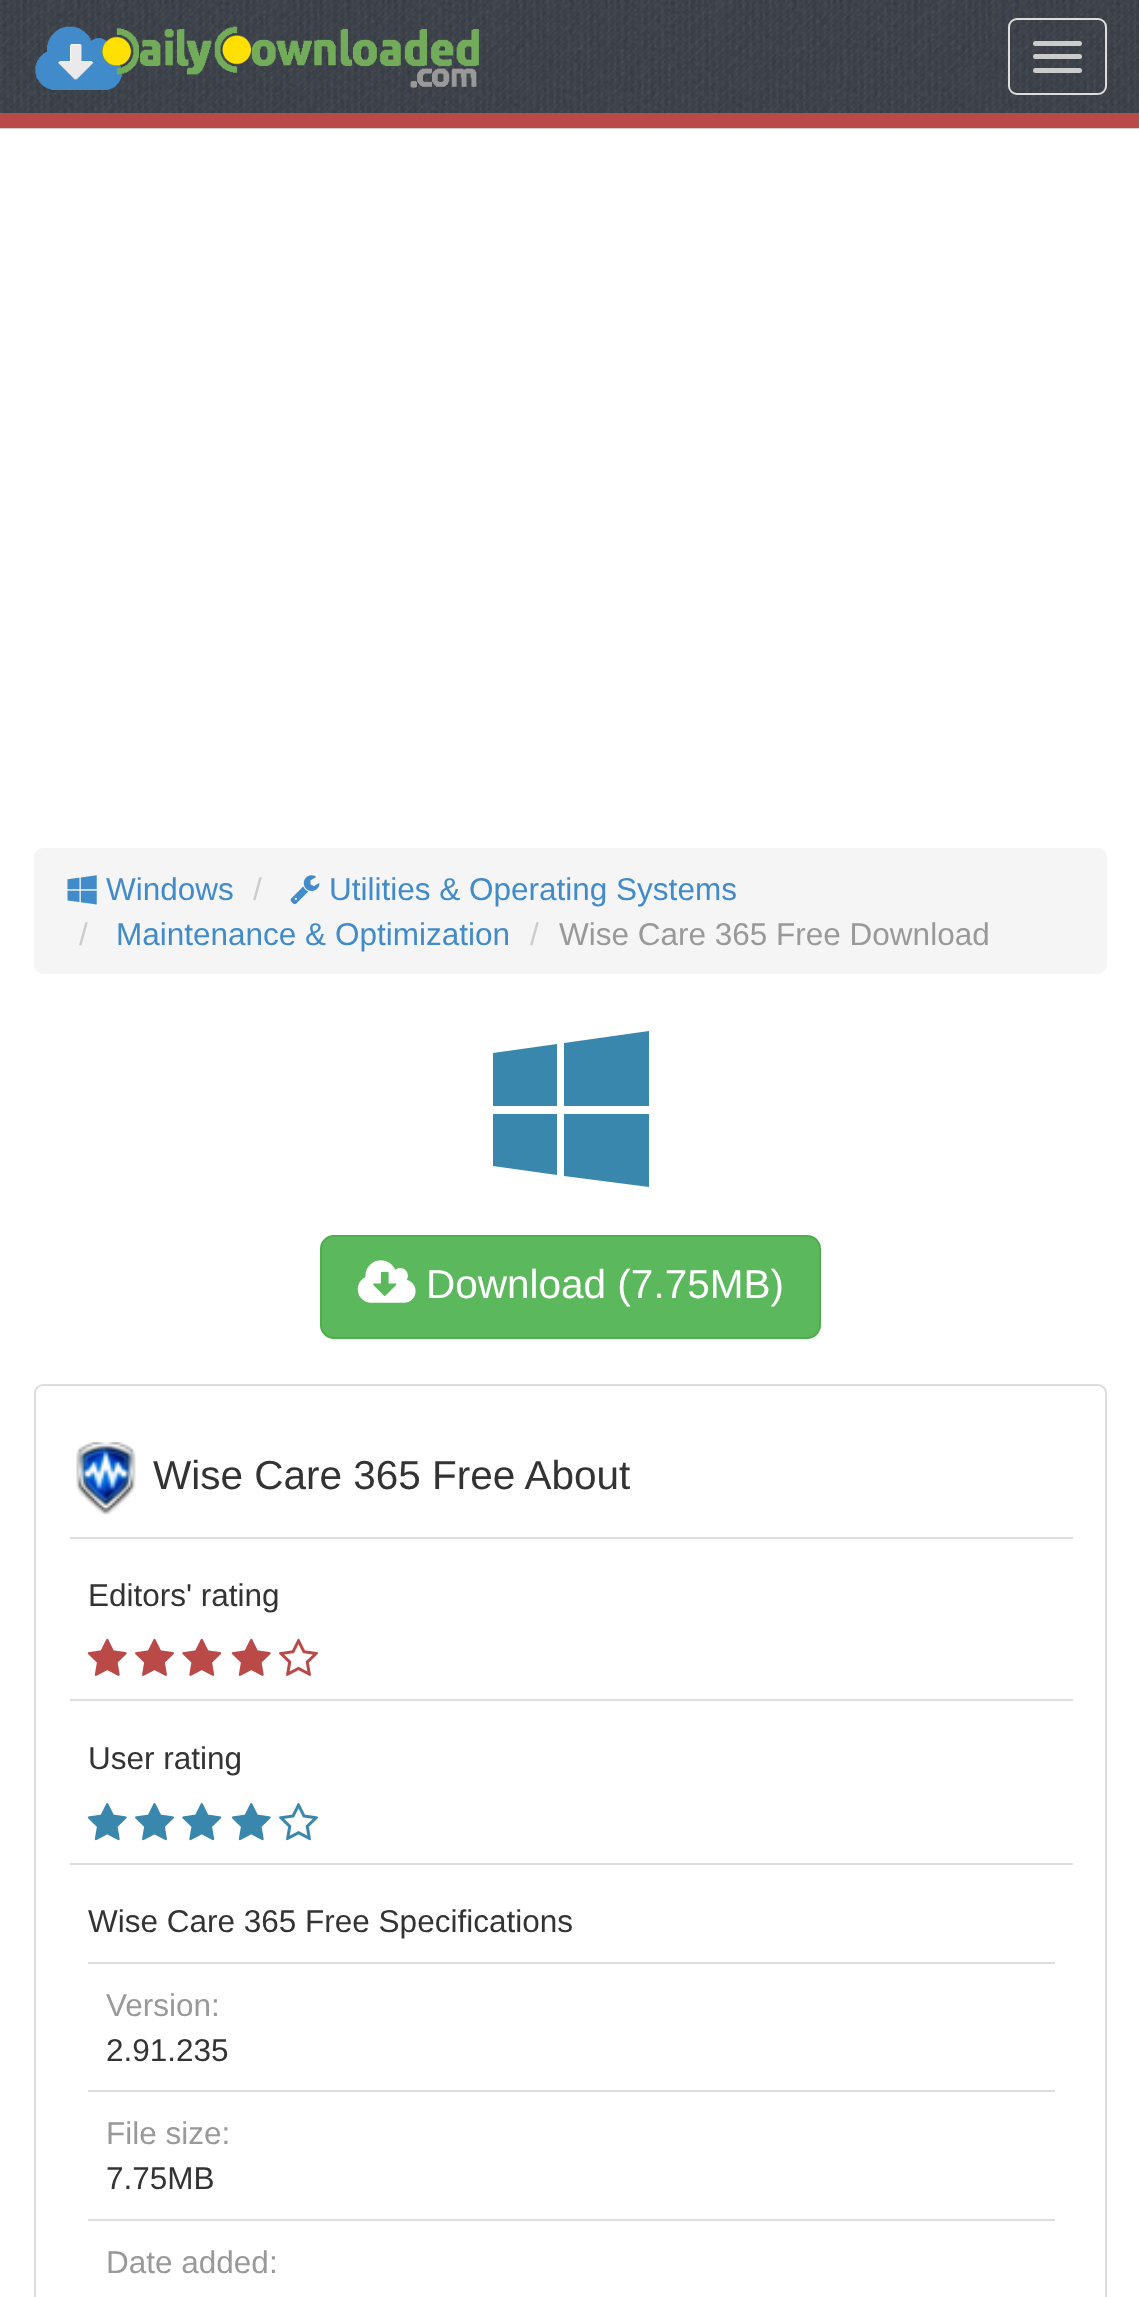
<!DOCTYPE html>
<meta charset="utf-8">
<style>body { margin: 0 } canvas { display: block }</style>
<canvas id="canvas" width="1139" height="2297"></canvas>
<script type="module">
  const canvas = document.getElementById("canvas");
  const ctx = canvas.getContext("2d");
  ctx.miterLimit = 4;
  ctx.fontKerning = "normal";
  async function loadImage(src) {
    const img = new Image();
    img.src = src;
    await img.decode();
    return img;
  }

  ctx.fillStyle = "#ffffff";
  ctx.fillRect(0, 0, 1139, 2297);
  ctx.drawImage(await loadImage("img1.png"), 0, 0, 1139, 129);
  ctx.fillStyle = "#b94a48";
  ctx.fillRect(0, 113, 1139, 15);
  ctx.drawImage(await loadImage("img2.png"), 35, 26, 444, 64);
  ctx.beginPath();
  ctx.roundRect(1009, 19, 97, 75, 8);
  ctx.strokeStyle = "#dddddd";
  ctx.lineWidth = 2;
  ctx.stroke();
  ctx.fillStyle = "#cccccc";
  ctx.beginPath();
  ctx.roundRect(1033, 41, 49, 5, 2.5);
  ctx.fill();
  ctx.beginPath();
  ctx.roundRect(1033, 54, 49, 5, 2.5);
  ctx.fill();
  ctx.beginPath();
  ctx.roundRect(1033, 68, 49, 5, 2.5);
  ctx.fill();
  ctx.fillStyle = "#f5f5f5";
  ctx.beginPath();
  ctx.roundRect(34, 848, 1073, 126, 9);
  ctx.fill();
  ctx.drawImage(await loadImage("img3.png"), 67, 875, 30, 30);
  ctx.font = "31.5px Liberation Sans";
  ctx.fillStyle = "#428bca";
  ctx.fillText("Windows", 106, 900);
  ctx.fillStyle = "#cccccc";
  ctx.fillText("/", 253, 900);
  ctx.drawImage(await loadImage("img4.png"), 290, 875, 30, 30);
  ctx.fillStyle = "#428bca";
  ctx.fillText("Utilities & Operating Systems", 329, 900);
  ctx.fillStyle = "#cccccc";
  ctx.fillText("/", 79, 945);
  ctx.fillStyle = "#428bca";
  ctx.fillText("Maintenance & Optimization", 116, 945);
  ctx.fillStyle = "#cccccc";
  ctx.fillText("/", 530, 945);
  ctx.fillStyle = "#999999";
  ctx.fillText("Wise Care 365 Free Download", 559, 945);
  ctx.fillStyle = "#3a87ad";
  ctx.beginPath();
  ctx.moveTo(557, 1114);
  ctx.lineTo(557, 1175);
  ctx.lineTo(493, 1166);
  ctx.lineTo(493, 1114);
  ctx.closePath();
  ctx.moveTo(557, 1044);
  ctx.lineTo(557, 1106);
  ctx.lineTo(493, 1106);
  ctx.lineTo(493, 1053);
  ctx.closePath();
  ctx.moveTo(649, 1114);
  ctx.lineTo(649, 1187);
  ctx.lineTo(564, 1176);
  ctx.lineTo(564, 1114);
  ctx.closePath();
  ctx.moveTo(649, 1031);
  ctx.lineTo(649, 1106);
  ctx.lineTo(564, 1106);
  ctx.lineTo(564, 1043);
  ctx.closePath();
  ctx.fill();
  ctx.fillStyle = "#5cb85c";
  ctx.beginPath();
  ctx.roundRect(321, 1236, 499, 102, 13);
  ctx.fill();
  ctx.strokeStyle = "#4cae4c";
  ctx.stroke();
  ctx.drawImage(await loadImage("img5.png"), 357, 1260, 59, 43);
  ctx.font = "40.5px Liberation Sans";
  ctx.fillStyle = "#ffffff";
  ctx.fillText("Download (7.75MB)", 426, 1298);
  ctx.beginPath();
  ctx.roundRect(35, 1385, 1071, 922, 8);
  ctx.strokeStyle = "#dddddd";
  ctx.stroke();
  ctx.drawImage(await loadImage("img6.png"), 76, 1442, 60, 73);
  ctx.fillStyle = "#333333";
  ctx.fillText("Wise Care 365 Free About", 153, 1489);
  ctx.fillStyle = "#dddddd";
  ctx.fillRect(70, 1537, 1003, 2);
  ctx.font = "31.5px Liberation Sans";
  ctx.fillStyle = "#333333";
  ctx.fillText("Editors' rating", 88, 1606);
  ctx.drawImage(await loadImage("img7.png"), 87, 1638, 40, 38);
  ctx.drawImage(await loadImage("img8.png"), 135, 1638, 39, 38);
  ctx.drawImage(await loadImage("img9.png"), 182, 1638, 40, 38);
  ctx.drawImage(await loadImage("img7.png"), 231, 1638, 40, 38);
  ctx.drawImage(await loadImage("img10.png"), 279, 1638, 39, 38);
  ctx.fillStyle = "#dddddd";
  ctx.fillRect(70, 1699, 1003, 2);
  ctx.fillStyle = "#333333";
  ctx.fillText("User rating", 88, 1769);
  ctx.drawImage(await loadImage("img11.png"), 87, 1803, 40, 38);
  ctx.drawImage(await loadImage("img12.png"), 135, 1803, 39, 38);
  ctx.drawImage(await loadImage("img13.png"), 182, 1803, 40, 38);
  ctx.drawImage(await loadImage("img11.png"), 231, 1803, 40, 38);
  ctx.drawImage(await loadImage("img14.png"), 279, 1803, 39, 38);
  ctx.fillStyle = "#dddddd";
  ctx.fillRect(70, 1863, 1003, 2);
  ctx.fillStyle = "#333333";
  ctx.fillText("Wise Care 365 Free Specifications", 88, 1932);
  ctx.fillStyle = "#dddddd";
  ctx.fillRect(88, 1962, 967, 2);
  ctx.fillStyle = "#999999";
  ctx.fillText("Version:", 106, 2016);
  ctx.fillStyle = "#333333";
  ctx.fillText("2.91.235", 106, 2061);
  ctx.fillStyle = "#dddddd";
  ctx.fillRect(88, 2090, 967, 2);
  ctx.fillStyle = "#999999";
  ctx.fillText("File size:", 106, 2144);
  ctx.fillStyle = "#333333";
  ctx.fillText("7.75MB", 106, 2189);
  ctx.fillStyle = "#dddddd";
  ctx.fillRect(88, 2219, 967, 2);
  ctx.fillStyle = "#999999";
  ctx.fillText("Date added:", 106, 2273);
</script>
